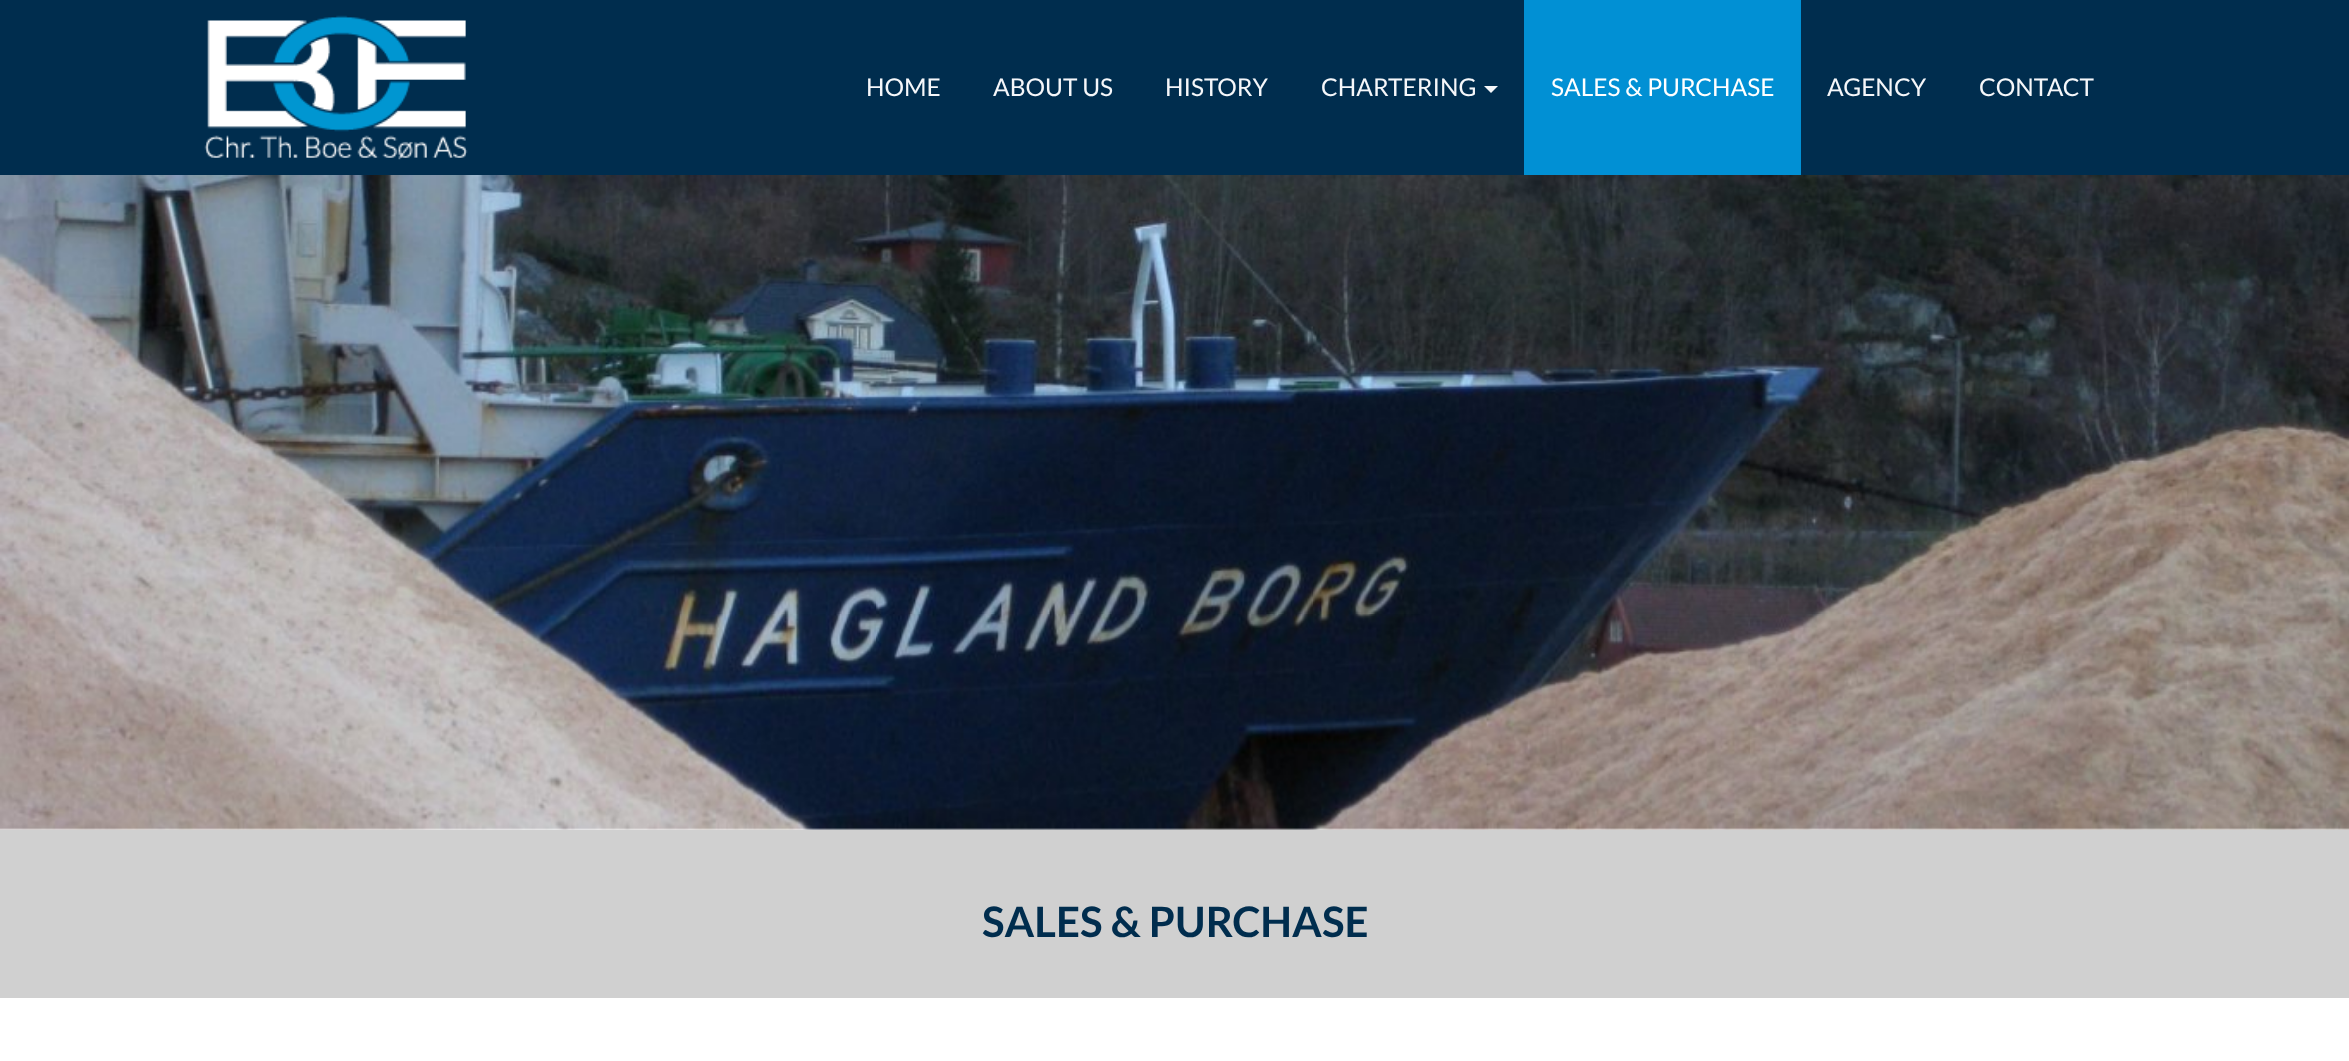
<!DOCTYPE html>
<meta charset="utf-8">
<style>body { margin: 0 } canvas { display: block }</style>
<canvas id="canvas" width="2349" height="1061"></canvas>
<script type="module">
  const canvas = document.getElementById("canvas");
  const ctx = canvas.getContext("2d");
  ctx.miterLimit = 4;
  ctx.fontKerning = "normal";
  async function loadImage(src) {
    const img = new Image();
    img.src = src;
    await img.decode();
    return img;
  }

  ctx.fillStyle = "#ffffff";
  ctx.fillRect(0, 0, 2349, 1061);
  ctx.fillStyle = "#002d4e";
  ctx.fillRect(0, 0, 2349, 175);
  ctx.drawImage(await loadImage("img1.png"), 204, 15, 264, 145);
  ctx.font = "24.5px Lato";
  ctx.fillStyle = "#f5f7fa";
  ctx.fillText("HOME", 866, 96);
  ctx.fillText("ABOUT US", 993, 96);
  ctx.fillText("HISTORY", 1165, 96);
  ctx.fillText("CHARTERING", 1321, 96);
  ctx.beginPath();
  ctx.moveTo(1484, 86);
  ctx.lineTo(1498, 86);
  ctx.lineTo(1491, 93);
  ctx.closePath();
  ctx.fill();
  ctx.fillStyle = "#0190d4";
  ctx.fillRect(1524, 0, 277, 175);
  ctx.fillStyle = "#ffffff";
  ctx.fillText("SALES & PURCHASE", 1551, 96);
  ctx.fillStyle = "#f5f7fa";
  ctx.fillText("AGENCY", 1827, 96);
  ctx.fillText("CONTACT", 1979, 96);
  ctx.drawImage(await loadImage("img2.png"), 0, 175, 2349, 655);
  ctx.fillStyle = "#d0d0d0";
  ctx.fillRect(0, 830, 2349, 168);
  ctx.font = "bold 42px Lato";
  ctx.fillStyle = "#002d4e";
  ctx.fillText("SALES & PURCHASE", 982, 937);
</script>
